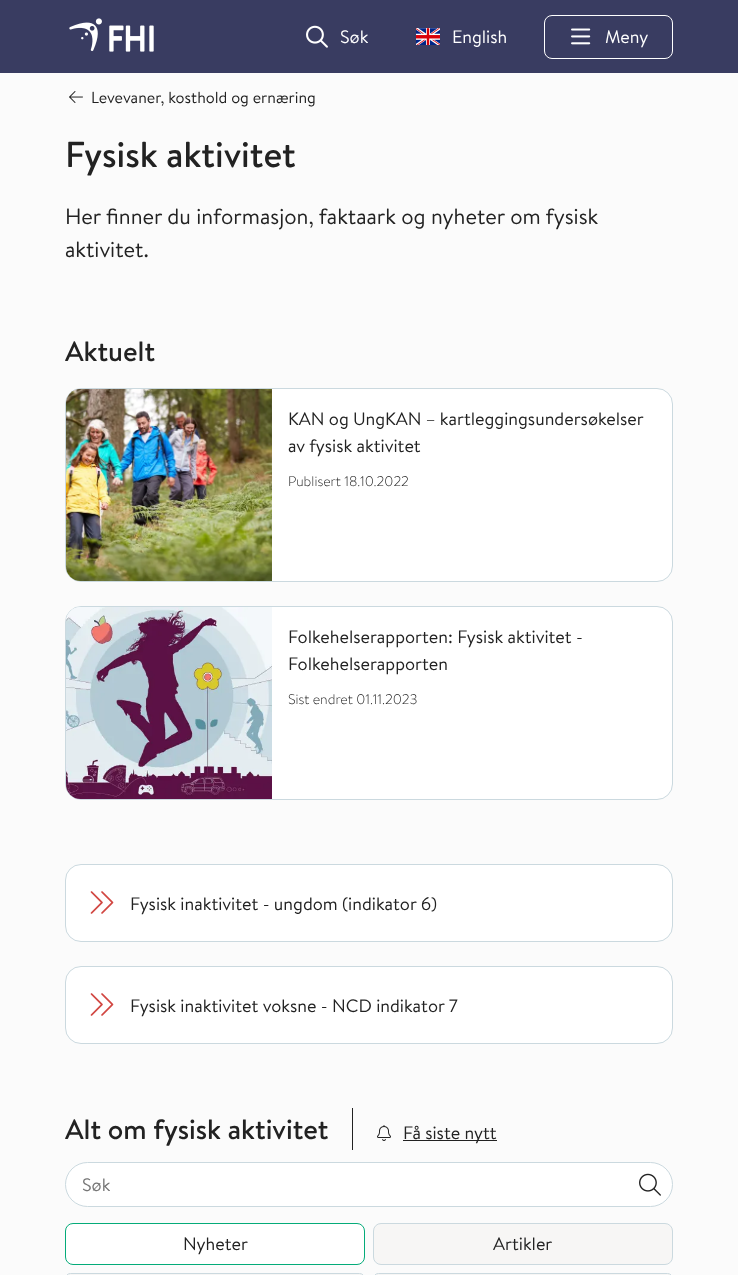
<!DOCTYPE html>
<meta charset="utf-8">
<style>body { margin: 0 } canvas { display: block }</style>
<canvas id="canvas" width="738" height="1275"></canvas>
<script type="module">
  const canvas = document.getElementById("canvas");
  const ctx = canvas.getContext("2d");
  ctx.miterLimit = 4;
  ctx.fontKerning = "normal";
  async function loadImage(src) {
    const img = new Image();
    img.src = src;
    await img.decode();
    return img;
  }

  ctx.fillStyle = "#fbfbfb";
  ctx.fillRect(0, 0, 738, 1275);
  ctx.fillStyle = "#393c61";
  ctx.fillRect(0, 0, 738, 73);
  ctx.drawImage(await loadImage("img1.png"), 69, 18, 85, 34);
  ctx.drawImage(await loadImage("img2.png"), 306, 25, 22, 23);
  ctx.font = "18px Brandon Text";
  ctx.fillStyle = "#ffffff";
  ctx.fillText("Søk", 340, 43);
  ctx.drawImage(await loadImage("img3.png"), 416, 28, 24, 17);
  ctx.fillText("English", 452, 43);
  ctx.beginPath();
  ctx.roundRect(544.5, 15.5, 128, 43, 7.5);
  ctx.strokeStyle = "#ffffff";
  ctx.stroke();
  ctx.drawImage(await loadImage("img4.png"), 571, 28, 20, 17);
  ctx.fillText("Meny", 605, 43);
  ctx.drawImage(await loadImage("img5.png"), 69, 91, 14, 12);
  ctx.font = "16px Brandon Text";
  ctx.fillStyle = "#222222";
  ctx.fillText("Levevaner, kosthold og ernæring", 91, 103);
  ctx.font = "500 36px Brandon Text";
  ctx.fillText("Fysisk aktivitet", 65, 167);
  ctx.font = "22px Brandon Text";
  ctx.fillText("Her finner du informasjon, faktaark og nyheter om fysisk", 65, 224);
  ctx.fillText("aktivitet.", 65, 257);
  ctx.font = "500 28px Brandon Text";
  ctx.fillText("Aktuelt", 65, 361);
  ctx.fillStyle = "#ffffff";
  ctx.beginPath();
  ctx.roundRect(65.5, 388.5, 607, 193, 15.5);
  ctx.fill();
  ctx.strokeStyle = "#cbd9df";
  ctx.stroke();
  ctx.drawImage(await loadImage("img6.png"), 66, 389, 206, 192);
  ctx.font = "18px Brandon Text";
  ctx.fillStyle = "#222222";
  ctx.fillText("KAN og UngKAN – kartleggingsundersøkelser", 288, 425);
  ctx.fillText("av fysisk aktivitet", 288, 452);
  ctx.font = "300 14px Brandon Text";
  ctx.fillText("Publisert 18.10.2022", 288, 486);
  ctx.fillStyle = "#ffffff";
  ctx.beginPath();
  ctx.roundRect(65.5, 606.5, 607, 193, 15.5);
  ctx.fill();
  ctx.stroke();
  ctx.drawImage(await loadImage("img7.png"), 66, 607, 206, 192);
  ctx.font = "18px Brandon Text";
  ctx.fillStyle = "#222222";
  ctx.fillText("Folkehelserapporten: Fysisk aktivitet -", 288, 643);
  ctx.fillText("Folkehelserapporten", 288, 670);
  ctx.font = "300 14px Brandon Text";
  ctx.fillText("Sist endret 01.11.2023", 288, 704);
  ctx.fillStyle = "#ffffff";
  ctx.beginPath();
  ctx.roundRect(65.5, 864.5, 607, 77, 15.5);
  ctx.fill();
  ctx.stroke();
  ctx.drawImage(await loadImage("img8.png"), 90, 891, 24, 23);
  ctx.font = "18px Brandon Text";
  ctx.fillStyle = "#222222";
  ctx.fillText("Fysisk inaktivitet - ungdom (indikator 6)", 130, 910);
  ctx.fillStyle = "#ffffff";
  ctx.beginPath();
  ctx.roundRect(65.5, 966.5, 607, 77, 15.5);
  ctx.fill();
  ctx.stroke();
  ctx.drawImage(await loadImage("img8.png"), 90, 993, 24, 23);
  ctx.fillStyle = "#222222";
  ctx.fillText("Fysisk inaktivitet voksne - NCD indikator 7", 130, 1012);
  ctx.fillRect(352, 1108, 1, 42);
  ctx.font = "500 28px Brandon Text";
  ctx.fillText("Alt om fysisk aktivitet", 65, 1139);
  ctx.drawImage(await loadImage("img9.png"), 377, 1125, 14, 16);
  ctx.fillRect(403, 1140, 94, 1);
  ctx.font = "18px Brandon Text";
  ctx.fillText("Få siste nytt", 403, 1139);
  ctx.fillStyle = "#ffffff";
  ctx.beginPath();
  ctx.roundRect(65.5, 1162.5, 607, 44, 22);
  ctx.fill();
  ctx.stroke();
  ctx.fillStyle = "#767676";
  ctx.fillText("Søk", 82, 1191);
  ctx.drawImage(await loadImage("img10.png"), 639, 1173, 22, 23);
  ctx.fillStyle = "#ffffff";
  ctx.beginPath();
  ctx.roundRect(65.5, 1223.5, 299, 41, 7.5);
  ctx.fill();
  ctx.strokeStyle = "#04ab79";
  ctx.stroke();
  ctx.fillStyle = "#222222";
  ctx.fillText("Nyheter", 183, 1250);
  ctx.fillStyle = "#f7f6f5";
  ctx.beginPath();
  ctx.roundRect(373.5, 1223.5, 299, 41, 7.5);
  ctx.fill();
  ctx.strokeStyle = "#cbd9df";
  ctx.stroke();
  ctx.fillStyle = "#222222";
  ctx.fillText("Artikler", 493, 1250);
  ctx.fillStyle = "#f7f6f5";
  ctx.beginPath();
  ctx.roundRect(65.5, 1273.5, 299, 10, 7.5);
  ctx.fill();
  ctx.stroke();
  ctx.beginPath();
  ctx.roundRect(373.5, 1273.5, 299, 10, 7.5);
  ctx.fill();
  ctx.stroke();
</script>
